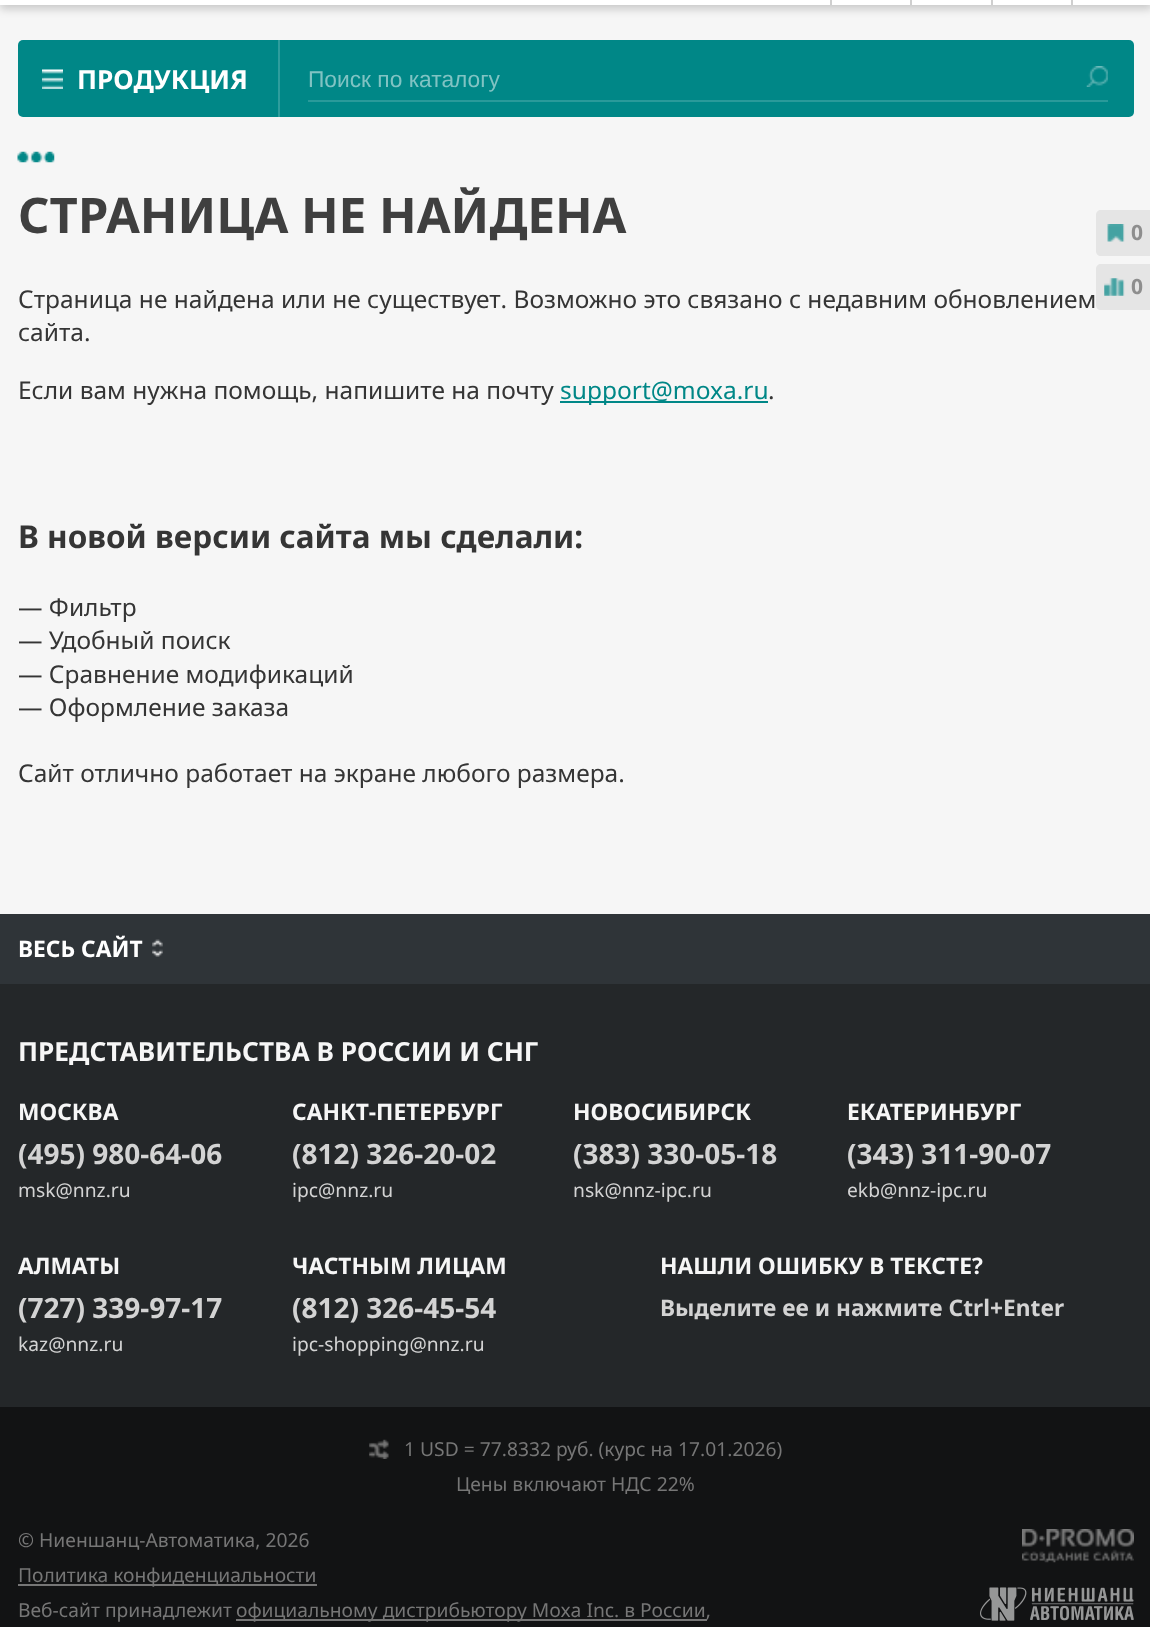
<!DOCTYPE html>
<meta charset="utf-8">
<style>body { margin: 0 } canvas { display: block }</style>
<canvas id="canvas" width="1150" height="1627"></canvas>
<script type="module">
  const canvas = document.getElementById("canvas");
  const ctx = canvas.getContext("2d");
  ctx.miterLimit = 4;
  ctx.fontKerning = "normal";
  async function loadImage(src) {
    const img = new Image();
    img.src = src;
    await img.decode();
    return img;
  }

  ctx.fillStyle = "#f6f6f6";
  ctx.fillRect(0, 0, 1150, 1627);
  ctx.fillStyle = "rgba(0, 0, 0, 0.19)";
  ctx.filter = "blur(4.5px)";
  ctx.beginPath();
  ctx.rect(0, -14, 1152, 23);
  ctx.fill();
  ctx.filter = "none";
  ctx.fillStyle = "#ffffff";
  ctx.fillRect(0, 0, 1150, 5);
  ctx.fillStyle = "#cfcfcf";
  ctx.fillRect(830, 0, 2, 5);
  ctx.fillRect(910, 0, 2, 5);
  ctx.fillRect(991, 0, 2, 5);
  ctx.fillRect(1071, 0, 2, 5);
  ctx.fillStyle = "#008787";
  ctx.beginPath();
  ctx.roundRect(18, 40, 1116, 77, 5);
  ctx.fill();
  ctx.fillStyle = "#2e9d9d";
  ctx.fillRect(278, 40, 2, 77);
  ctx.drawImage(await loadImage("img1.png"), 42, 69, 21, 20);
  ctx.font = "bold 26.25px Noto Sans";
  ctx.fillStyle = "#ffffff";
  ctx.fillText("ПРОДУКЦИЯ", 77, 89);
  ctx.fillStyle = "#299a9a";
  ctx.fillRect(308, 100, 800, 2);
  ctx.font = "22.75px Liberation Sans";
  ctx.fillStyle = "#80c3c3";
  ctx.fillText("Поиск по каталогу", 308, 87);
  ctx.drawImage(await loadImage("img2.png"), 1086, 66, 22, 21);
  ctx.drawImage(await loadImage("img3.png"), 17, 151, 38, 12);
  ctx.font = "bold 49px Noto Sans";
  ctx.fillStyle = "#3f3f3f";
  ctx.fillText("СТРАНИЦА НЕ НАЙДЕНА", 18, 233);
  ctx.font = "24.5px Noto Sans";
  ctx.fillStyle = "#353535";
  ctx.fillText("Страница не найдена или не существует. Возможно это связано с недавним обновлением", 18, 308);
  ctx.fillText("сайта.", 18, 341);
  ctx.fillText("Если вам нужна помощь, напишите на почту", 18, 399);
  ctx.fillStyle = "#008787";
  ctx.fillRect(560, 401, 208, 2);
  ctx.fillText("support@moxa.ru", 560, 399);
  ctx.fillStyle = "#353535";
  ctx.fillText(".", 768, 399);
  ctx.font = "bold 31.5px Noto Sans";
  ctx.fillText("В новой версии сайта мы сделали:", 18, 548);
  ctx.font = "24.5px Noto Sans";
  ctx.fillText("— Фильтр", 18, 616);
  ctx.fillText("— Удобный поиск", 18, 649);
  ctx.fillText("— Сравнение модификаций", 18, 683);
  ctx.fillText("— Оформление заказа", 18, 716);
  ctx.fillText("Сайт отлично работает на экране любого размера.", 18, 782);
  ctx.fillStyle = "#e5e5e5";
  ctx.beginPath();
  ctx.moveTo(1101, 210);
  ctx.lineTo(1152, 210);
  ctx.lineTo(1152, 256);
  ctx.lineTo(1101, 256);
  ctx.bezierCurveTo(1098, 256, 1096, 254, 1096, 251);
  ctx.lineTo(1096, 215);
  ctx.bezierCurveTo(1096, 212, 1098, 210, 1101, 210);
  ctx.closePath();
  ctx.fill();
  ctx.drawImage(await loadImage("img4.png"), 1107, 224, 18, 18);
  ctx.font = "bold 21px Noto Sans";
  ctx.fillStyle = "#8e8e8e";
  ctx.fillText("0", 1131, 240);
  ctx.fillStyle = "#e5e5e5";
  ctx.beginPath();
  ctx.moveTo(1101, 264);
  ctx.lineTo(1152, 264);
  ctx.lineTo(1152, 310);
  ctx.lineTo(1101, 310);
  ctx.bezierCurveTo(1098, 310, 1096, 308, 1096, 305);
  ctx.lineTo(1096, 269);
  ctx.bezierCurveTo(1096, 266, 1098, 264, 1101, 264);
  ctx.closePath();
  ctx.fill();
  ctx.drawImage(await loadImage("img5.png"), 1104, 278, 21, 18);
  ctx.fillStyle = "#8e8e8e";
  ctx.fillText("0", 1131, 294);
  ctx.fillStyle = "#2f3438";
  ctx.fillRect(0, 914, 1150, 70);
  ctx.font = "bold 22.75px Noto Sans";
  ctx.fillStyle = "#ffffff";
  ctx.fillText("ВЕСЬ САЙТ", 18, 957);
  ctx.drawImage(await loadImage("img6.png"), 152, 939, 11, 18);
  ctx.fillStyle = "#242729";
  ctx.fillRect(0, 984, 1150, 423);
  ctx.font = "bold 26.25px Noto Sans";
  ctx.fillStyle = "#f6f6f6";
  ctx.fillText("ПРЕДСТАВИТЕЛЬСТВА В РОССИИ И СНГ", 18, 1061);
  ctx.font = "bold 22.75px Noto Sans";
  ctx.fillText("МОСКВА", 18, 1120);
  ctx.font = "bold 28px Noto Sans";
  ctx.fillStyle = "#d3d3d3";
  ctx.fillText("(495) 980-64-06", 18, 1164);
  ctx.font = "19.25px Noto Sans";
  ctx.fillText("msk@nnz.ru", 18, 1197);
  ctx.font = "bold 22.75px Noto Sans";
  ctx.fillStyle = "#f6f6f6";
  ctx.fillText("САНКТ-ПЕТЕРБУРГ", 292, 1120);
  ctx.font = "bold 28px Noto Sans";
  ctx.fillStyle = "#d3d3d3";
  ctx.fillText("(812) 326-20-02", 292, 1164);
  ctx.font = "19.25px Noto Sans";
  ctx.fillText("ipc@nnz.ru", 292, 1197);
  ctx.font = "bold 22.75px Noto Sans";
  ctx.fillStyle = "#f6f6f6";
  ctx.fillText("НОВОСИБИРСК", 573, 1120);
  ctx.font = "bold 28px Noto Sans";
  ctx.fillStyle = "#d3d3d3";
  ctx.fillText("(383) 330-05-18", 573, 1164);
  ctx.font = "19.25px Noto Sans";
  ctx.fillText("nsk@nnz-ipc.ru", 573, 1197);
  ctx.font = "bold 22.75px Noto Sans";
  ctx.fillStyle = "#f6f6f6";
  ctx.fillText("ЕКАТЕРИНБУРГ", 847, 1120);
  ctx.font = "bold 28px Noto Sans";
  ctx.fillStyle = "#d3d3d3";
  ctx.fillText("(343) 311-90-07", 847, 1164);
  ctx.font = "19.25px Noto Sans";
  ctx.fillText("ekb@nnz-ipc.ru", 847, 1197);
  ctx.font = "bold 22.75px Noto Sans";
  ctx.fillStyle = "#f6f6f6";
  ctx.fillText("АЛМАТЫ", 18, 1274);
  ctx.font = "bold 28px Noto Sans";
  ctx.fillStyle = "#d3d3d3";
  ctx.fillText("(727) 339-97-17", 18, 1318);
  ctx.font = "19.25px Noto Sans";
  ctx.fillText("kaz@nnz.ru", 18, 1351);
  ctx.font = "bold 22.75px Noto Sans";
  ctx.fillStyle = "#f6f6f6";
  ctx.fillText("ЧАСТНЫМ ЛИЦАМ", 292, 1274);
  ctx.font = "bold 28px Noto Sans";
  ctx.fillStyle = "#d3d3d3";
  ctx.fillText("(812) 326-45-54", 292, 1318);
  ctx.font = "19.25px Noto Sans";
  ctx.fillText("ipc-shopping@nnz.ru", 292, 1351);
  ctx.font = "bold 22.75px Noto Sans";
  ctx.fillStyle = "#f6f6f6";
  ctx.fillText("НАШЛИ ОШИБКУ В ТЕКСТЕ?", 660, 1274);
  ctx.fillStyle = "#d3d3d3";
  ctx.fillText("Выделите ее и нажмите Ctrl+Enter", 660, 1316);
  ctx.fillStyle = "#121314";
  ctx.fillRect(0, 1407, 1150, 220);
  ctx.drawImage(await loadImage("img7.png"), 369, 1439, 20, 20);
  ctx.font = "19.25px Noto Sans";
  ctx.fillStyle = "#767676";
  ctx.fillText("1 USD = 77.8332 руб. (курс на 17.01.2026)", 404, 1456);
  ctx.fillText("Цены включают НДС 22%", 456, 1491);
  ctx.fillText("© Ниеншанц-Автоматика, 2026", 18, 1547);
  ctx.fillRect(18, 1584, 299, 2);
  ctx.fillText("Политика конфиденциальности", 18, 1582);
  ctx.fillText("Веб-сайт принадлежит", 18, 1617);
  ctx.fillRect(236, 1619, 471, 2);
  ctx.fillText("официальному дистрибьютору Moxa Inc. в России,", 236, 1617);
  ctx.drawImage(await loadImage("img8.png"), 1022, 1529, 112, 34);
  ctx.drawImage(await loadImage("img9.png"), 980, 1587, 154, 34);
</script>
